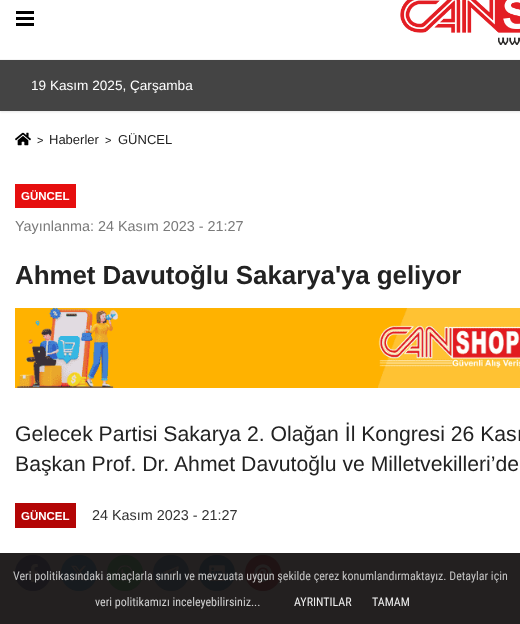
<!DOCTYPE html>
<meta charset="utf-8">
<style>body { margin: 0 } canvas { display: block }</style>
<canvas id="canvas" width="520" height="624"></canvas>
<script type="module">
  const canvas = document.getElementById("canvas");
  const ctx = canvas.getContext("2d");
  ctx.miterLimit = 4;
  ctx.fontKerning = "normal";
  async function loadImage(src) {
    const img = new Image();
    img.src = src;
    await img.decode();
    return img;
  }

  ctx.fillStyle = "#ffffff";
  ctx.fillRect(0, 0, 520, 624);
  ctx.fillStyle = "#232020";
  ctx.fillRect(0, 553, 520, 71);
  ctx.fillStyle = "rgba(0, 0, 0, 0.1)";
  ctx.filter = "blur(1px)";
  ctx.beginPath();
  ctx.rect(0, 61, 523, 51);
  ctx.fill();
  ctx.filter = "none";
  ctx.fillStyle = "#f5f5f5";
  ctx.fillRect(0, 59, 520, 1);
  ctx.fillStyle = "#000000";
  ctx.fillRect(16, 11, 18, 3);
  ctx.fillRect(16, 17, 18, 3);
  ctx.fillRect(16, 23, 18, 3);
  ctx.drawImage(await loadImage("img1.png"), 400, 0, 120, 45);
  ctx.fillStyle = "#444444";
  ctx.fillRect(0, 60, 520, 51);
  ctx.font = "13.6px Liberation Sans";
  ctx.fillStyle = "#ffffff";
  ctx.fillText("19 Kasım 2025, Çarşamba", 31, 90);
  ctx.drawImage(await loadImage("img2.png"), 15, 132, 16, 14);
  ctx.font = "11px Liberation Sans";
  ctx.fillStyle = "#222222";
  ctx.fillText(">", 37, 144);
  ctx.font = "13px Liberation Sans";
  ctx.fillText("Haberler", 49, 144);
  ctx.font = "11px Liberation Sans";
  ctx.fillText(">", 105, 144);
  ctx.font = "13px Liberation Sans";
  ctx.fillText("GÜNCEL", 118, 144);
  ctx.fillStyle = "#e60e0e";
  ctx.fillRect(15, 184, 61, 24);
  ctx.font = "bold 11.5px Liberation Sans";
  ctx.fillStyle = "#ffffff";
  ctx.fillText("GÜNCEL", 21, 200);
  ctx.font = "14.4px Liberation Sans";
  ctx.fillStyle = "#7a7a7a";
  ctx.fillText("Yayınlanma: 24 Kasım 2023 - 21:27", 15, 231);
  ctx.letterSpacing = "-0.1px";
  ctx.font = "bold 26px Liberation Sans";
  ctx.fillStyle = "#222222";
  ctx.fillText("Ahmet Davutoğlu Sakarya'ya geliyor", 15, 284);
  ctx.drawImage(await loadImage("img3.png"), 15, 308, 505, 80);
  ctx.letterSpacing = "0px";
  ctx.font = "21.2px Liberation Sans";
  ctx.fillText("Gelecek Partisi Sakarya 2. Olağan İl Kongresi 26 Kası", 15, 441);
  ctx.fillText("Başkan Prof. Dr. Ahmet Davutoğlu ve Milletvekilleri’de", 15, 471);
  ctx.fillStyle = "#b30505";
  ctx.fillRect(15, 503, 61, 25);
  ctx.font = "bold 11.5px Liberation Sans";
  ctx.fillStyle = "#ffffff";
  ctx.fillText("GÜNCEL", 21, 520);
  ctx.font = "14.4px Liberation Sans";
  ctx.fillStyle = "#333333";
  ctx.fillText("24 Kasım 2023 - 21:27", 92, 520);
  ctx.fillStyle = "#19171b";
  ctx.beginPath();
  ctx.arc(33, 573, 18, 0, Math.PI * 2);
  ctx.fill();
  ctx.drawImage(await loadImage("img4.png"), 28, 564, 10, 18);
  ctx.fillStyle = "#171b1f";
  ctx.beginPath();
  ctx.arc(79, 573, 18, 0, Math.PI * 2);
  ctx.fill();
  ctx.drawImage(await loadImage("img5.png"), 71, 565, 16, 16);
  ctx.fillStyle = "#181e18";
  ctx.beginPath();
  ctx.arc(125, 573, 18, 0, Math.PI * 2);
  ctx.fill();
  ctx.drawImage(await loadImage("img6.png"), 117, 565, 16, 16);
  ctx.fillStyle = "#181a1d";
  ctx.beginPath();
  ctx.arc(171, 573, 18, 0, Math.PI * 2);
  ctx.fill();
  ctx.drawImage(await loadImage("img7.png"), 163, 566, 16, 14);
  ctx.fillStyle = "#16191c";
  ctx.beginPath();
  ctx.arc(217, 573, 18, 0, Math.PI * 2);
  ctx.fill();
  ctx.drawImage(await loadImage("img8.png"), 209, 565, 16, 16);
  ctx.fillStyle = "#1f1314";
  ctx.beginPath();
  ctx.arc(263, 573, 18, 0, Math.PI * 2);
  ctx.fill();
  ctx.drawImage(await loadImage("img9.png"), 254, 564, 18, 18);
  ctx.font = "12px Roboto Condensed";
  ctx.fillStyle = "#c3c3c3";
  ctx.fillText("Veri politikasındaki amaçlarla sınırlı ve mevzuata uygun şekilde çerez konumlandırmaktayız. Detaylar için", 13, 580);
  ctx.fillStyle = "#cfcfcf";
  ctx.fillText("veri politikamızı inceleyebilirsiniz...", 95, 606);
  ctx.fillStyle = "#efefef";
  ctx.fillText("AYRINTILAR", 294, 606);
  ctx.fillText("TAMAM", 372, 606);
</script>
